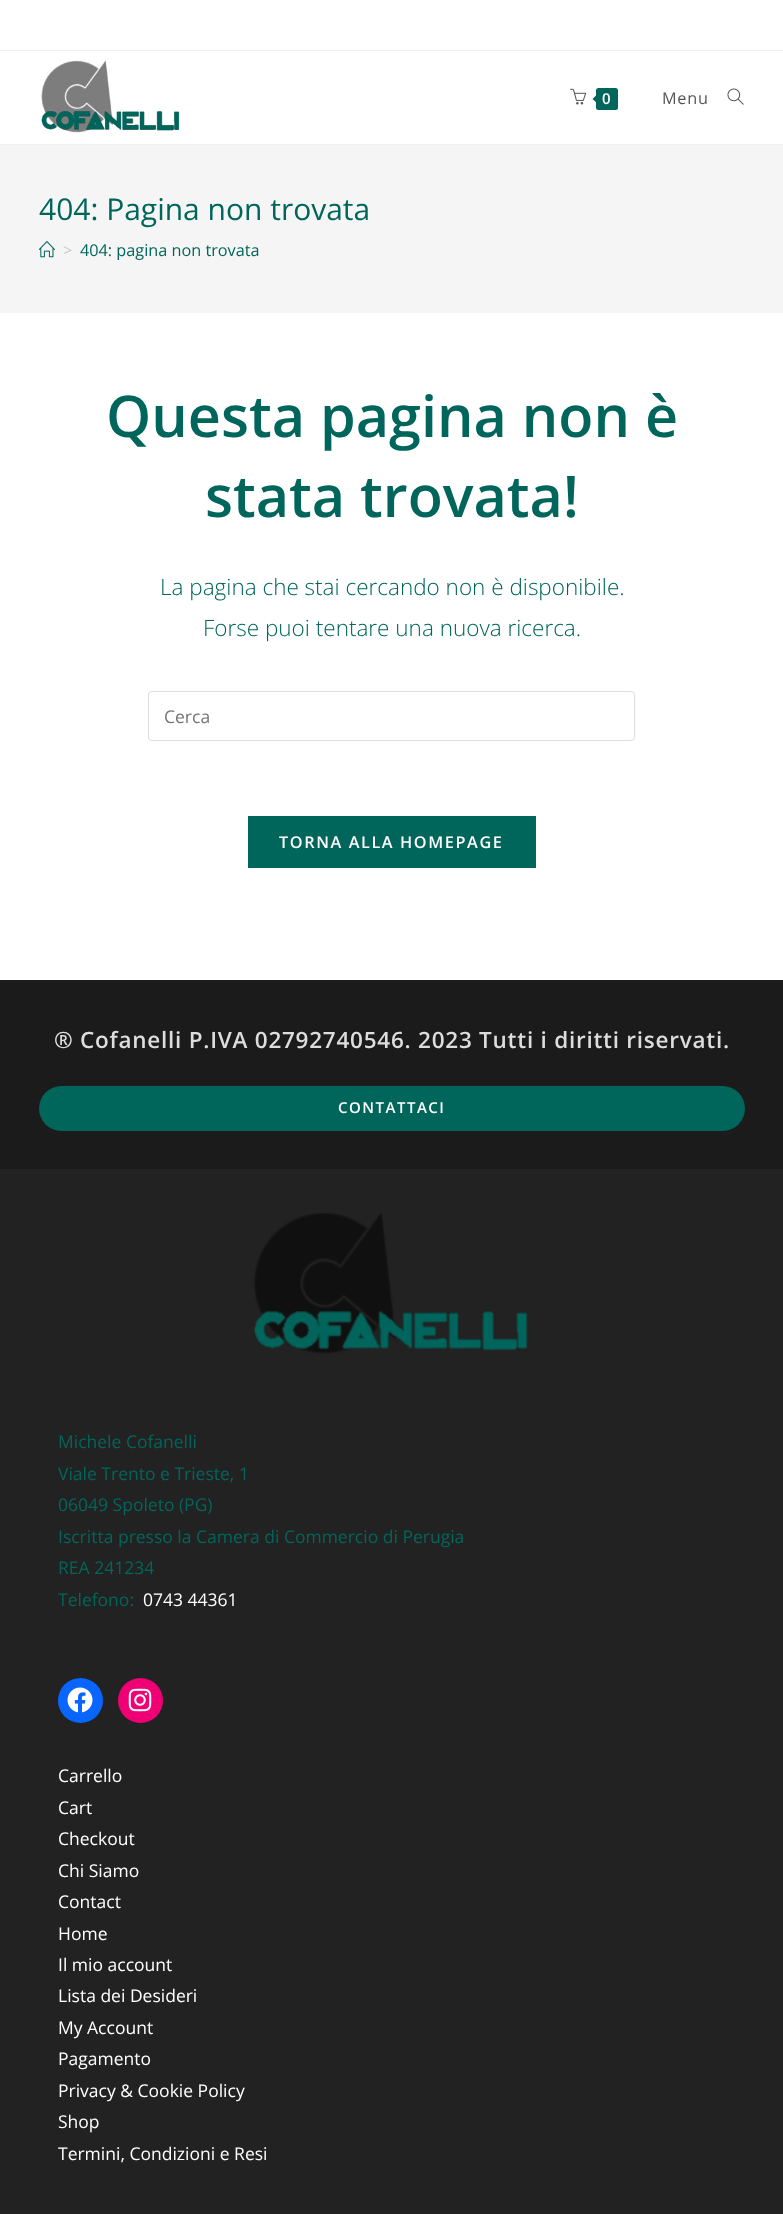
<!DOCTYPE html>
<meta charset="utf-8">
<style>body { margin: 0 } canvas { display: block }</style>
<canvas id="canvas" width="783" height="2214"></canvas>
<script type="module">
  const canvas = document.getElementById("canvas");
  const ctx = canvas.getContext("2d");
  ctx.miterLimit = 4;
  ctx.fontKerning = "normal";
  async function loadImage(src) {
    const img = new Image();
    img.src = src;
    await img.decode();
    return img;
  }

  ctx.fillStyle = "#ffffff";
  ctx.fillRect(0, 0, 783, 2214);
  ctx.fillStyle = "#f1f1f1";
  ctx.fillRect(0, 50, 783, 1);
  ctx.fillRect(0, 144, 783, 1);
  ctx.drawImage(await loadImage("img1.png"), 41, 60, 139, 73);
  ctx.drawImage(await loadImage("img2.png"), 570, 88, 17, 17);
  ctx.fillStyle = "#00665c";
  ctx.beginPath();
  ctx.roundRect(596, 88, 22, 22, 2.5);
  ctx.fill();
  ctx.beginPath();
  ctx.moveTo(599, 92.5);
  ctx.lineTo(599, 105);
  ctx.lineTo(592.5, 99);
  ctx.closePath();
  ctx.fill();
  ctx.letterSpacing = "0.75px";
  ctx.font = "600 15px Open Sans";
  ctx.fillStyle = "#ffffff";
  ctx.fillText("0", 602, 104);
  ctx.font = "16.25px Open Sans";
  ctx.fillStyle = "#555555";
  ctx.fillText("Menu", 662, 104);
  ctx.drawImage(await loadImage("img3.png"), 727, 88, 17, 17);
  ctx.fillStyle = "#f5f5f5";
  ctx.fillRect(0, 145, 783, 168);
  ctx.letterSpacing = "0px";
  ctx.font = "30px Open Sans";
  ctx.fillStyle = "#00665c";
  ctx.fillText("404: Pagina non trovata", 39, 220);
  ctx.drawImage(await loadImage("img4.png"), 39, 241, 16, 17);
  ctx.font = "16.25px Open Sans";
  ctx.fillStyle = "#c6c6c6";
  ctx.fillText(">", 63, 256);
  ctx.fillStyle = "#00665c";
  ctx.fillText("404: pagina non trovata", 80, 256);
  ctx.font = "600 57.5px Open Sans";
  ctx.fillText("Questa pagina non è", 106, 437);
  ctx.fillText("stata trovata!", 205, 517);
  ctx.font = "300 22.5px Open Sans";
  ctx.fillText("La pagina che stai cercando non è disponibile.", 160, 595);
  ctx.fillText("Forse puoi tentare una nuova ricerca.", 203, 636);
  ctx.beginPath();
  ctx.roundRect(148.5, 691.5, 486, 49, 3.5);
  ctx.strokeStyle = "#dddddd";
  ctx.stroke();
  ctx.font = "17.5px Open Sans";
  ctx.fillStyle = "#757575";
  ctx.fillText("Cerca", 164, 723);
  ctx.fillStyle = "#00665c";
  ctx.fillRect(248, 816, 288, 52);
  ctx.letterSpacing = "1.6px";
  ctx.font = "600 16.25px Open Sans";
  ctx.fillStyle = "#ffffff";
  ctx.fillText("TORNA ALLA HOMEPAGE", 279, 848);
  ctx.fillStyle = "#1b1b1b";
  ctx.fillRect(0, 980, 783, 189);
  ctx.letterSpacing = "0.75px";
  ctx.font = "600 22.5px Open Sans";
  ctx.fillStyle = "#dddddd";
  ctx.fillText("® Cofanelli P.IVA 02792740546. 2023 Tutti i diritti riservati.", 54, 1048);
  ctx.fillStyle = "#00665c";
  ctx.beginPath();
  ctx.roundRect(39, 1086, 706, 45, 22.5);
  ctx.fill();
  ctx.letterSpacing = "1.5px";
  ctx.font = "600 15px Open Sans";
  ctx.fillStyle = "#ffffff";
  ctx.fillText("CONTATTACI", 338, 1113);
  ctx.fillStyle = "#222222";
  ctx.fillRect(0, 1169, 783, 1045);
  ctx.drawImage(await loadImage("img5.png"), 253, 1213, 275, 141);
  ctx.letterSpacing = "0px";
  ctx.font = "17.5px Open Sans";
  ctx.fillStyle = "#00665c";
  ctx.fillText("Michele Cofanelli", 58, 1448);
  ctx.fillText("Viale Trento e Trieste, 1", 58, 1480);
  ctx.fillText("06049 Spoleto (PG)", 58, 1511);
  ctx.fillText("Iscritta presso la Camera di Commercio di Perugia", 58, 1543);
  ctx.fillText("REA 241234", 58, 1574);
  ctx.fillText("Telefono:", 58, 1606);
  ctx.fillStyle = "#ffffff";
  ctx.fillText("0743 44361", 143, 1606);
  ctx.fillStyle = "#0866ff";
  ctx.beginPath();
  ctx.arc(80.5, 1700.5, 22.5, 0, Math.PI * 2);
  ctx.fill();
  ctx.drawImage(await loadImage("img6.png"), 67, 1687, 26, 26);
  ctx.fillStyle = "#f00075";
  ctx.beginPath();
  ctx.arc(140.5, 1700.5, 22.5, 0, Math.PI * 2);
  ctx.fill();
  ctx.drawImage(await loadImage("img7.png"), 128, 1688, 24, 24);
  ctx.fillStyle = "#ffffff";
  ctx.fillText("Carrello", 58, 1782);
  ctx.fillText("Cart", 58, 1814);
  ctx.fillText("Checkout", 58, 1845);
  ctx.fillText("Chi Siamo", 58, 1877);
  ctx.fillText("Contact", 58, 1908);
  ctx.fillText("Home", 58, 1940);
  ctx.fillText("Il mio account", 58, 1971);
  ctx.fillText("Lista dei Desideri", 58, 2002);
  ctx.fillText("My Account", 58, 2034);
  ctx.fillText("Pagamento", 58, 2065);
  ctx.fillText("Privacy & Cookie Policy", 58, 2097);
  ctx.fillText("Shop", 58, 2128);
  ctx.fillText("Termini, Condizioni e Resi", 58, 2160);
</script>
